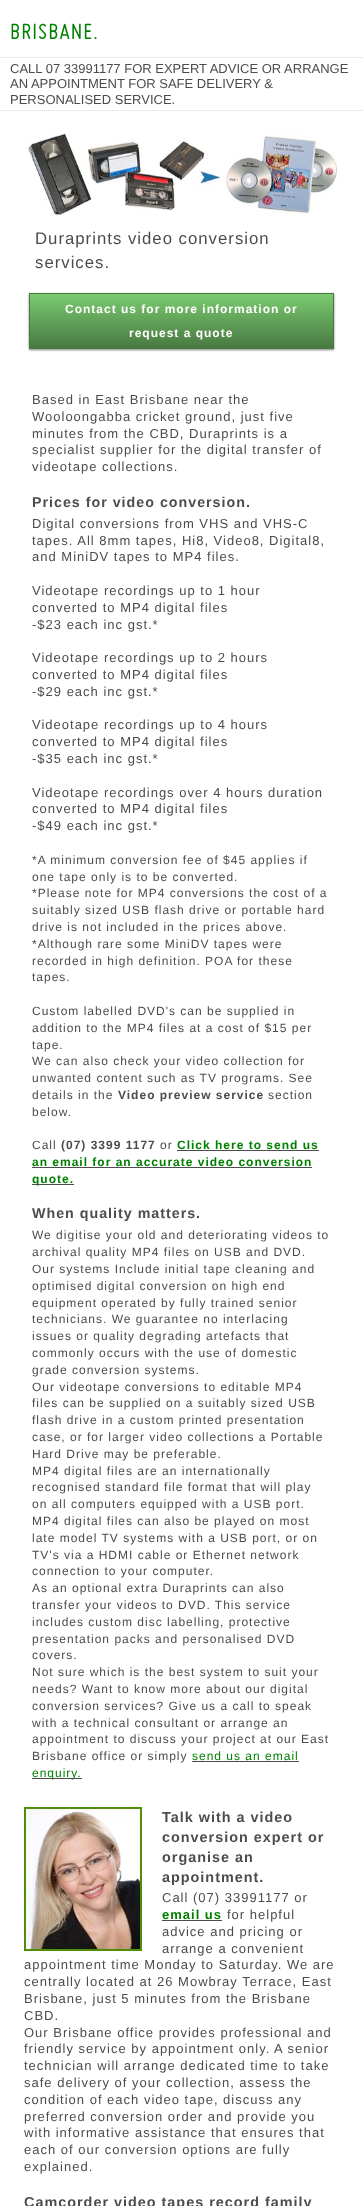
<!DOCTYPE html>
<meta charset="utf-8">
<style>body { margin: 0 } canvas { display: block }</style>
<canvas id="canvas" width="363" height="2206"></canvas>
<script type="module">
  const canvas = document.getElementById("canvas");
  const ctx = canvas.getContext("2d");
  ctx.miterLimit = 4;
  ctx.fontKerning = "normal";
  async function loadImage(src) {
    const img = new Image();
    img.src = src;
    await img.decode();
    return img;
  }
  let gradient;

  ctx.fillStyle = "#fefffe";
  ctx.fillRect(0, 0, 363, 2206);
  ctx.letterSpacing = "1px";
  ctx.font = "italic 24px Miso";
  ctx.fillStyle = "#008000";
  ctx.fillText("BRISBANE.", 10, 39);
  ctx.beginPath();
  ctx.moveTo(0, 57.5);
  ctx.lineTo(363, 57.5);
  ctx.strokeStyle = "#d7d7d7";
  ctx.setLineDash([1, 1]);
  ctx.stroke();
  ctx.beginPath();
  ctx.moveTo(0, 110.5);
  ctx.lineTo(363, 110.5);
  ctx.stroke();
  ctx.letterSpacing = "0px";
  ctx.font = "13px Liberation Sans";
  ctx.fillStyle = "#4c4c4c";
  ctx.fillText("CALL 07 33991177 FOR EXPERT ADVICE OR ARRANGE", 10, 73);
  ctx.fillText("AN APPOINTMENT FOR SAFE DELIVERY &", 10, 88);
  ctx.fillText("PERSONALISED SERVICE.", 10, 104);
  ctx.drawImage(await loadImage("img1.png"), 27, 133, 311, 83);
  ctx.letterSpacing = "1px";
  ctx.font = "16.75px Liberation Sans";
  ctx.fillText("Duraprints video conversion", 35, 244);
  ctx.fillText("services.", 35, 268);
  ctx.fillStyle = "rgba(0, 0, 0, 0.5)";
  ctx.filter = "blur(1px)";
  ctx.beginPath();
  ctx.rect(29, 294, 305, 56);
  ctx.fill();
  ctx.filter = "none";
  gradient = ctx.createLinearGradient(30, 294, 30, 348);
  gradient.addColorStop(0, "#7aca6f");
  gradient.addColorStop(1, "#497942");
  ctx.fillStyle = gradient;
  ctx.fillRect(30, 294, 303, 54);
  ctx.strokeStyle = "#497942";
  ctx.setLineDash([]);
  ctx.strokeRect(29.5, 293.5, 304, 55);
  ctx.font = "bold 12px Liberation Sans";
  ctx.fillStyle = "#ffffff";
  ctx.fillText("Contact us for more information or", 65, 313);
  ctx.fillText("request a quote", 129, 337);
  ctx.font = "13px Liberation Sans";
  ctx.fillStyle = "#4c4c4c";
  ctx.fillText("Based in East Brisbane near the", 32, 404);
  ctx.fillText("Wooloongabba cricket ground, just five", 32, 421);
  ctx.fillText("minutes from the CBD, Duraprints is a", 32, 438);
  ctx.fillText("specialist supplier for the digital transfer of", 32, 454);
  ctx.fillText("videotape collections.", 32, 471);
  ctx.font = "bold 14.25px Liberation Sans";
  ctx.fillText("Prices for video conversion.", 32, 507);
  ctx.font = "13px Liberation Sans";
  ctx.fillText("Digital conversions from VHS and VHS-C", 32, 528);
  ctx.fillText("tapes. All 8mm tapes, Hi8, Video8, Digital8,", 32, 545);
  ctx.fillText("and MiniDV tapes to MP4 files.", 32, 561);
  ctx.fillText("Videotape recordings up to 1 hour", 32, 595);
  ctx.fillText("converted to MP4 digital files", 32, 612);
  ctx.fillText("-$23 each inc gst.*", 32, 629);
  ctx.fillText("Videotape recordings up to 2 hours", 32, 662);
  ctx.fillText("converted to MP4 digital files", 32, 679);
  ctx.fillText("-$29 each inc gst.*", 32, 696);
  ctx.fillText("Videotape recordings up to 4 hours", 32, 729);
  ctx.fillText("converted to MP4 digital files", 32, 746);
  ctx.fillText("-$35 each inc gst.*", 32, 763);
  ctx.fillText("Videotape recordings over 4 hours duration", 32, 797);
  ctx.fillText("converted to MP4 digital files", 32, 813);
  ctx.fillText("-$49 each inc gst.*", 32, 830);
  ctx.font = "12px Liberation Sans";
  ctx.fillText("*A minimum conversion fee of $45 applies if", 32, 864);
  ctx.fillText("one tape only is to be converted.", 32, 881);
  ctx.fillText("*Please note for MP4 conversions the cost of a", 32, 897);
  ctx.fillText("suitably sized USB flash drive or portable hard", 32, 914);
  ctx.fillText("drive is not included in the prices above.", 32, 931);
  ctx.fillText("*Although rare some MiniDV tapes were", 32, 948);
  ctx.fillText("recorded in high definition. POA for these", 32, 965);
  ctx.fillText("tapes.", 32, 981);
  ctx.fillText("Custom labelled DVD's can be supplied in", 32, 1015);
  ctx.fillText("addition to the MP4 files at a cost of $15 per", 32, 1032);
  ctx.fillText("tape.", 32, 1049);
  ctx.fillText("We can also check your video collection for", 32, 1065);
  ctx.fillText("unwanted content such as TV programs. See", 32, 1082);
  ctx.fillText("details in the", 32, 1099);
  ctx.font = "bold 12px Liberation Sans";
  ctx.fillText("Video preview service", 118, 1099);
  ctx.font = "12px Liberation Sans";
  ctx.fillText("section", 268, 1099);
  ctx.fillText("below.", 32, 1116);
  ctx.fillText("Call", 32, 1149);
  ctx.font = "bold 12px Liberation Sans";
  ctx.fillText("(07) 3399 1177", 61, 1149);
  ctx.font = "12px Liberation Sans";
  ctx.fillText("or", 160, 1149);
  ctx.font = "bold 12px Liberation Sans";
  ctx.fillStyle = "#008000";
  ctx.fillText("Click here to send us", 177, 1149);
  ctx.fillStyle = "#4c4c4c";
  ctx.fillRect(177, 1150, 142, 1);
  ctx.fillStyle = "#008000";
  ctx.fillText("an email for an accurate video conversion", 32, 1166);
  ctx.fillStyle = "#4c4c4c";
  ctx.fillRect(32, 1167, 280, 1);
  ctx.fillRect(32, 1184, 42, 1);
  ctx.fillStyle = "#008000";
  ctx.fillText("quote.", 32, 1183);
  ctx.font = "bold 14.25px Liberation Sans";
  ctx.fillStyle = "#4c4c4c";
  ctx.fillText("When quality matters.", 32, 1218);
  ctx.font = "12px Liberation Sans";
  ctx.fillText("We digitise your old and deteriorating videos to", 32, 1239);
  ctx.fillText("archival quality MP4 files on USB and DVD.", 32, 1256);
  ctx.fillText("Our systems Include initial tape cleaning and", 32, 1273);
  ctx.fillText("optimised digital conversion on high end", 32, 1290);
  ctx.fillText("equipment operated by fully trained senior", 32, 1307);
  ctx.fillText("technicians. We guarantee no interlacing", 32, 1323);
  ctx.fillText("issues or quality degrading artefacts that", 32, 1340);
  ctx.fillText("commonly occurs with the use of domestic", 32, 1357);
  ctx.fillText("grade conversion systems.", 32, 1374);
  ctx.fillText("Our videotape conversions to editable MP4", 32, 1391);
  ctx.fillText("files can be supplied on a suitably sized USB", 32, 1407);
  ctx.fillText("flash drive in a custom printed presentation", 32, 1424);
  ctx.fillText("case, or for larger video collections a Portable", 32, 1441);
  ctx.fillText("Hard Drive may be preferable.", 32, 1458);
  ctx.fillText("MP4 digital files are an internationally", 32, 1475);
  ctx.fillText("recognised standard file format that will play", 32, 1491);
  ctx.fillText("on all computers equipped with a USB port.", 32, 1508);
  ctx.fillText("MP4 digital files can also be played on most", 32, 1525);
  ctx.fillText("late model TV systems with a USB port, or on", 32, 1542);
  ctx.fillText("TV's via a HDMI cable or Ethernet network", 32, 1559);
  ctx.fillText("connection to your computer.", 32, 1575);
  ctx.fillText("As an optional extra Duraprints can also", 32, 1592);
  ctx.fillText("transfer your videos to DVD. This service", 32, 1609);
  ctx.fillText("includes custom disc labelling, protective", 32, 1626);
  ctx.fillText("presentation packs and personalised DVD", 32, 1643);
  ctx.fillText("covers.", 32, 1659);
  ctx.fillText("Not sure which is the best system to suit your", 32, 1676);
  ctx.fillText("needs? Want to know more about our digital", 32, 1693);
  ctx.fillText("conversion services? Give us a call to speak", 32, 1710);
  ctx.fillText("with a technical consultant or arrange an", 32, 1727);
  ctx.fillText("appointment to discuss your project at our East", 32, 1743);
  ctx.fillText("Brisbane office or simply", 32, 1760);
  ctx.fillStyle = "#008000";
  ctx.fillText("send us an email", 192, 1760);
  ctx.fillStyle = "#4c4c4c";
  ctx.fillRect(192, 1761, 107, 1);
  ctx.fillRect(32, 1778, 50, 1);
  ctx.fillStyle = "#008000";
  ctx.fillText("enquiry.", 32, 1777);
  ctx.drawImage(await loadImage("img2.png"), 24, 1807, 118, 144);
  ctx.font = "bold 14.4px Liberation Sans";
  ctx.fillStyle = "#4c4c4c";
  ctx.fillText("Talk with a video", 162, 1822);
  ctx.fillText("conversion expert or", 162, 1842);
  ctx.fillText("organise an", 162, 1862);
  ctx.fillText("appointment.", 162, 1882);
  ctx.font = "13px Liberation Sans";
  ctx.fillText("Call (07) 33991177 or", 162, 1902);
  ctx.font = "bold 13px Liberation Sans";
  ctx.fillStyle = "#008000";
  ctx.fillText("email us", 162, 1919);
  ctx.fillStyle = "#4c4c4c";
  ctx.fillRect(162, 1920, 60, 1);
  ctx.font = "13px Liberation Sans";
  ctx.fillText("for helpful", 227, 1919);
  ctx.fillText("advice and pricing or", 162, 1936);
  ctx.fillText("arrange a convenient", 162, 1953);
  ctx.fillText("appointment time Monday to Saturday. We are", 24, 1969);
  ctx.fillText("centrally located at 26 Mowbray Terrace, East", 24, 1986);
  ctx.fillText("Brisbane, just 5 minutes from the Brisbane", 24, 2003);
  ctx.fillText("CBD.", 24, 2020);
  ctx.fillText("Our Brisbane office provides professional and", 24, 2037);
  ctx.fillText("friendly service by appointment only.", 24, 2053);
  ctx.fillText("A senior", 274, 2053);
  ctx.fillText("technician will arrange dedicated time to take", 24, 2070);
  ctx.fillText("safe delivery of your collection, assess the", 24, 2087);
  ctx.fillText("condition of each video tape, discuss any", 24, 2104);
  ctx.fillText("preferred conversion order and provide you", 24, 2121);
  ctx.fillText("with informative assistance that ensures that", 24, 2137);
  ctx.fillText("each of our conversion options are fully", 24, 2154);
  ctx.fillText("explained.", 24, 2171);
  ctx.font = "bold 14.4px Liberation Sans";
  ctx.fillText("Camcorder video tapes record family", 24, 2207);
</script>
